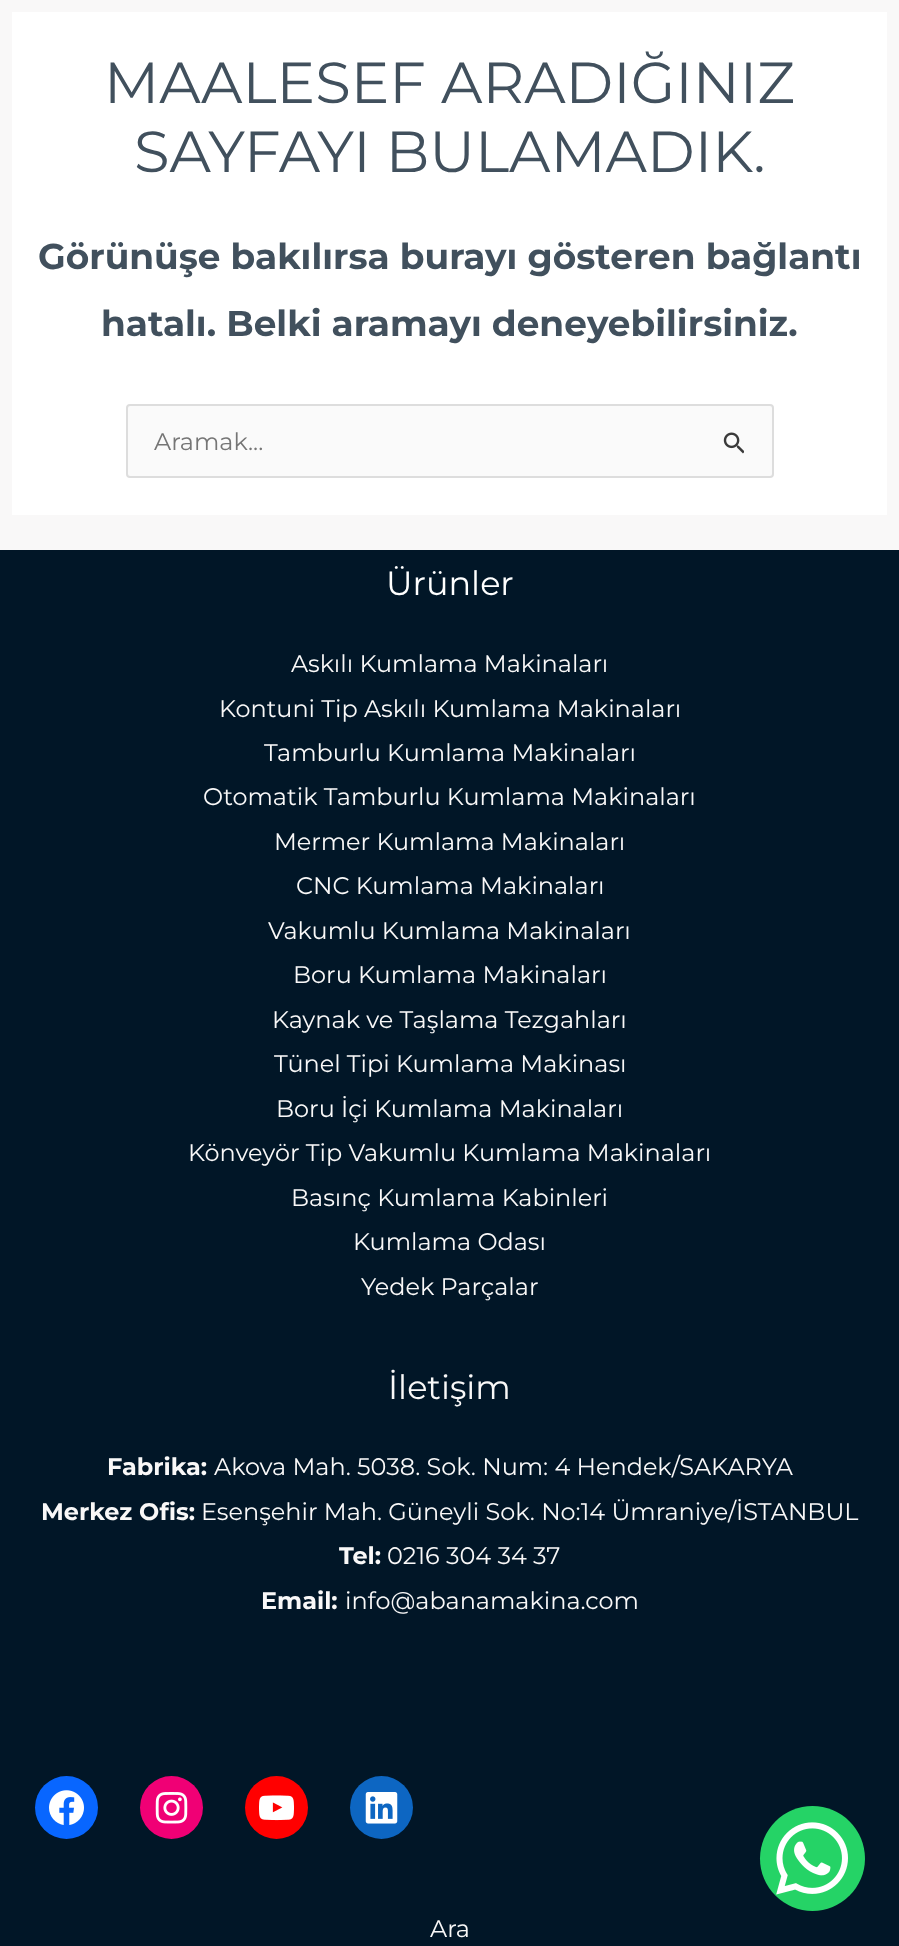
<!DOCTYPE html>
<meta charset="utf-8">
<style>body { margin: 0 } canvas { display: block }</style>
<canvas id="canvas" width="899" height="1946"></canvas>
<script type="module">
  const canvas = document.getElementById("canvas");
  const ctx = canvas.getContext("2d");
  ctx.miterLimit = 4;
  ctx.fontKerning = "normal";
  async function loadImage(src) {
    const img = new Image();
    img.src = src;
    await img.decode();
    return img;
  }

  ctx.fillStyle = "#f9f8f8";
  ctx.fillRect(0, 0, 899, 1946);
  ctx.fillStyle = "#ffffff";
  ctx.fillRect(12, 12, 875, 503);
  ctx.font = "57.75px Montserrat";
  ctx.fillStyle = "#41505d";
  ctx.fillText("MAALESEF ARADIĞINIZ", 104, 103);
  ctx.fillText("SAYFAYI BULAMADIK.", 134, 172);
  ctx.font = "bold 35.9px Montserrat";
  ctx.fillText("Görünüşe bakılırsa burayı gösteren bağlantı", 38, 269);
  ctx.fillText("hatalı. Belki aramayı deneyebilirsiniz.", 101, 336);
  ctx.fillStyle = "#fafafa";
  ctx.beginPath();
  ctx.roundRect(127, 405, 646, 72, 3);
  ctx.fill();
  ctx.strokeStyle = "#dddddd";
  ctx.lineWidth = 2;
  ctx.stroke();
  ctx.font = "23.95px Montserrat";
  ctx.fillStyle = "#757575";
  ctx.fillText("Aramak...", 154, 450);
  ctx.drawImage(await loadImage("img1.png"), 723, 432, 21, 22);
  ctx.fillStyle = "#011627";
  ctx.fillRect(0, 550, 899, 1396);
  ctx.font = "33.5px Montserrat";
  ctx.fillStyle = "#ffffff";
  ctx.fillText("Ürünler", 386, 595);
  ctx.font = "23.95px Montserrat";
  ctx.fillStyle = "#f9f8f8";
  ctx.fillText("Askılı Kumlama Makinaları", 291, 672);
  ctx.fillText("Kontuni Tip Askılı Kumlama Makinaları", 219, 717);
  ctx.fillText("Tamburlu Kumlama Makinaları", 264, 761);
  ctx.fillText("Otomatik Tamburlu Kumlama Makinaları", 203, 805);
  ctx.fillText("Mermer Kumlama Makinaları", 274, 850);
  ctx.fillText("CNC Kumlama Makinaları", 296, 894);
  ctx.fillText("Vakumlu Kumlama Makinaları", 268, 939);
  ctx.fillText("Boru Kumlama Makinaları", 293, 983);
  ctx.fillText("Kaynak ve Taşlama Tezgahları", 272, 1028);
  ctx.fillText("Tünel Tipi Kumlama Makinası", 274, 1072);
  ctx.fillText("Boru İçi Kumlama Makinaları", 276, 1117);
  ctx.fillText("Könveyör Tip Vakumlu Kumlama Makinaları", 188, 1161);
  ctx.fillText("Basınç Kumlama Kabinleri", 291, 1206);
  ctx.fillText("Kumlama Odası", 353, 1250);
  ctx.fillText("Yedek Parçalar", 361, 1295);
  ctx.font = "33.5px Montserrat";
  ctx.fillText("İletişim", 388, 1399);
  ctx.font = "bold 23.95px Montserrat";
  ctx.fillText("Fabrika:", 107, 1475);
  ctx.font = "23.95px Montserrat";
  ctx.fillText("Akova Mah. 5038. Sok. Num: 4 Hendek/SAKARYA", 214, 1475);
  ctx.font = "bold 23.95px Montserrat";
  ctx.fillText("Merkez Ofis:", 41, 1520);
  ctx.font = "23.95px Montserrat";
  ctx.fillText("Esenşehir Mah. Güneyli Sok. No:14 Ümraniye/İSTANBUL", 201, 1520);
  ctx.font = "bold 23.95px Montserrat";
  ctx.fillText("Tel:", 339, 1564);
  ctx.font = "23.95px Montserrat";
  ctx.fillText("0216 304 34 37", 387, 1564);
  ctx.font = "bold 23.95px Montserrat";
  ctx.fillText("Email:", 261, 1609);
  ctx.font = "23.95px Montserrat";
  ctx.fillText("info@abanamakina.com", 345, 1609);
  ctx.fillStyle = "#0866ff";
  ctx.beginPath();
  ctx.arc(66.5, 1807.5, 31.5, 0, Math.PI * 2);
  ctx.fill();
  ctx.drawImage(await loadImage("img2.png"), 49, 1790, 35, 35);
  ctx.fillStyle = "#f00075";
  ctx.beginPath();
  ctx.arc(171.5, 1807.5, 31.5, 0, Math.PI * 2);
  ctx.fill();
  ctx.drawImage(await loadImage("img3.png"), 155, 1792, 33, 32);
  ctx.fillStyle = "#ff0000";
  ctx.beginPath();
  ctx.arc(276.5, 1807.5, 31.5, 0, Math.PI * 2);
  ctx.fill();
  ctx.drawImage(await loadImage("img4.png"), 259, 1795, 35, 26);
  ctx.fillStyle = "#0d66c2";
  ctx.beginPath();
  ctx.arc(381.5, 1807.5, 31.5, 0, Math.PI * 2);
  ctx.fill();
  ctx.drawImage(await loadImage("img5.png"), 365, 1792, 33, 32);
  ctx.fillStyle = "#f9f8f8";
  ctx.fillText("Ara", 430, 1937);
  ctx.fillStyle = "#25d366";
  ctx.beginPath();
  ctx.arc(812.5, 1858.5, 52.5, 0, Math.PI * 2);
  ctx.fill();
  ctx.drawImage(await loadImage("img6.png"), 776, 1822, 72, 73);
</script>
